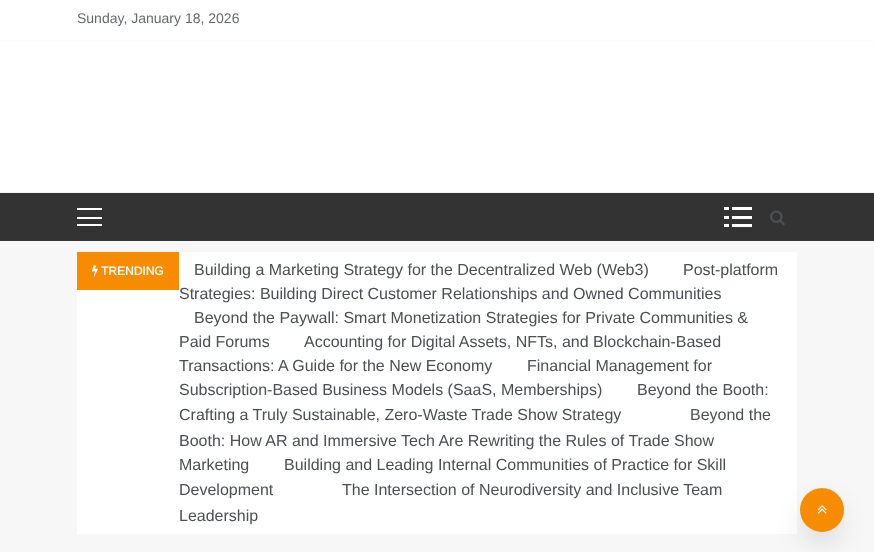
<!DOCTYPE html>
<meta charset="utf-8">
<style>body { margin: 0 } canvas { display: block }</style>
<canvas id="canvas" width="874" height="552"></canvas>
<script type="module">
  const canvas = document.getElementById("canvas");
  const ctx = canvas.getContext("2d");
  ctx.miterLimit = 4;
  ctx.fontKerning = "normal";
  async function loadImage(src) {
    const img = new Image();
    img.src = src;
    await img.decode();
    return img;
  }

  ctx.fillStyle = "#f7f7f7";
  ctx.fillRect(0, 0, 874, 552);
  ctx.fillStyle = "#ffffff";
  ctx.fillRect(0, 0, 874, 40);
  ctx.fillStyle = "#fafafa";
  ctx.fillRect(0, 40, 874, 1);
  ctx.font = "14px Arimo";
  ctx.fillStyle = "#67696d";
  ctx.fillText("Sunday, January 18, 2026", 77, 23);
  ctx.fillStyle = "#ffffff";
  ctx.fillRect(0, 41, 874, 151);
  ctx.fillStyle = "#fafafa";
  ctx.fillRect(0, 241, 874, 1);
  ctx.fillStyle = "#f2f2f2";
  ctx.fillRect(0, 192, 874, 1);
  ctx.fillStyle = "#333333";
  ctx.fillRect(0, 193, 874, 48);
  ctx.fillStyle = "#ffffff";
  ctx.fillRect(77, 208, 25, 2);
  ctx.fillRect(77, 217, 25, 2);
  ctx.fillRect(77, 224, 25, 2);
  ctx.fillRect(732, 207, 20, 3);
  ctx.fillRect(724, 207, 5, 3);
  ctx.fillRect(732, 216, 20, 3);
  ctx.fillRect(724, 216, 5, 3);
  ctx.fillRect(732, 224, 20, 3);
  ctx.fillRect(724, 224, 5, 3);
  ctx.drawImage(await loadImage("img1.png"), 770, 210, 15, 16);
  ctx.fillRect(77, 252, 720, 282);
  ctx.fillStyle = "#f88c01";
  ctx.fillRect(77, 252, 102, 38);
  ctx.drawImage(await loadImage("img2.png"), 92, 265, 6, 12);
  ctx.font = "bold 12px Arimo";
  ctx.fillStyle = "#ffffff";
  ctx.fillText("TRENDING", 101, 275);
  ctx.font = "16px Arimo";
  ctx.fillStyle = "#4c4f53";
  ctx.fillText("Building a Marketing Strategy for the Decentralized Web (Web3)", 194, 275);
  ctx.fillText("Post-platform", 683, 275);
  ctx.fillText("Strategies: Building Direct Customer Relationships and Owned Communities", 179, 299);
  ctx.fillText("Beyond the Paywall: Smart Monetization Strategies for Private Communities &", 194, 323);
  ctx.fillText("Paid Forums", 179, 347);
  ctx.fillText("Accounting for Digital Assets, NFTs, and Blockchain-Based", 304, 347);
  ctx.fillText("Transactions: A Guide for the New Economy", 179, 371);
  ctx.fillText("Financial Management for", 527, 371);
  ctx.fillText("Subscription-Based Business Models (SaaS, Memberships)", 179, 395);
  ctx.fillText("Beyond the Booth:", 637, 395);
  ctx.fillText("Crafting a Truly Sustainable, Zero-Waste Trade Show Strategy", 179, 420);
  ctx.fillText("Beyond the", 690, 420);
  ctx.fillText("Booth: How AR and Immersive Tech Are Rewriting the Rules of Trade Show", 179, 446);
  ctx.fillText("Marketing", 179, 470);
  ctx.fillText("Building and Leading Internal Communities of Practice for Skill", 284, 470);
  ctx.fillText("Development", 179, 495);
  ctx.fillText("The Intersection of Neurodiversity and Inclusive Team", 342, 495);
  ctx.fillText("Leadership", 179, 521);
  ctx.fillStyle = "rgba(14, 17, 20, 0.15)";
  ctx.filter = "blur(14px)";
  ctx.beginPath();
  ctx.roundRect(804, 506, 36, 36, 18);
  ctx.fill();
  ctx.filter = "none";
  ctx.fillStyle = "#f88c01";
  ctx.beginPath();
  ctx.arc(822, 510, 22, 0, Math.PI * 2);
  ctx.fill();
  ctx.drawImage(await loadImage("img3.png"), 817, 505, 10, 9);
</script>
